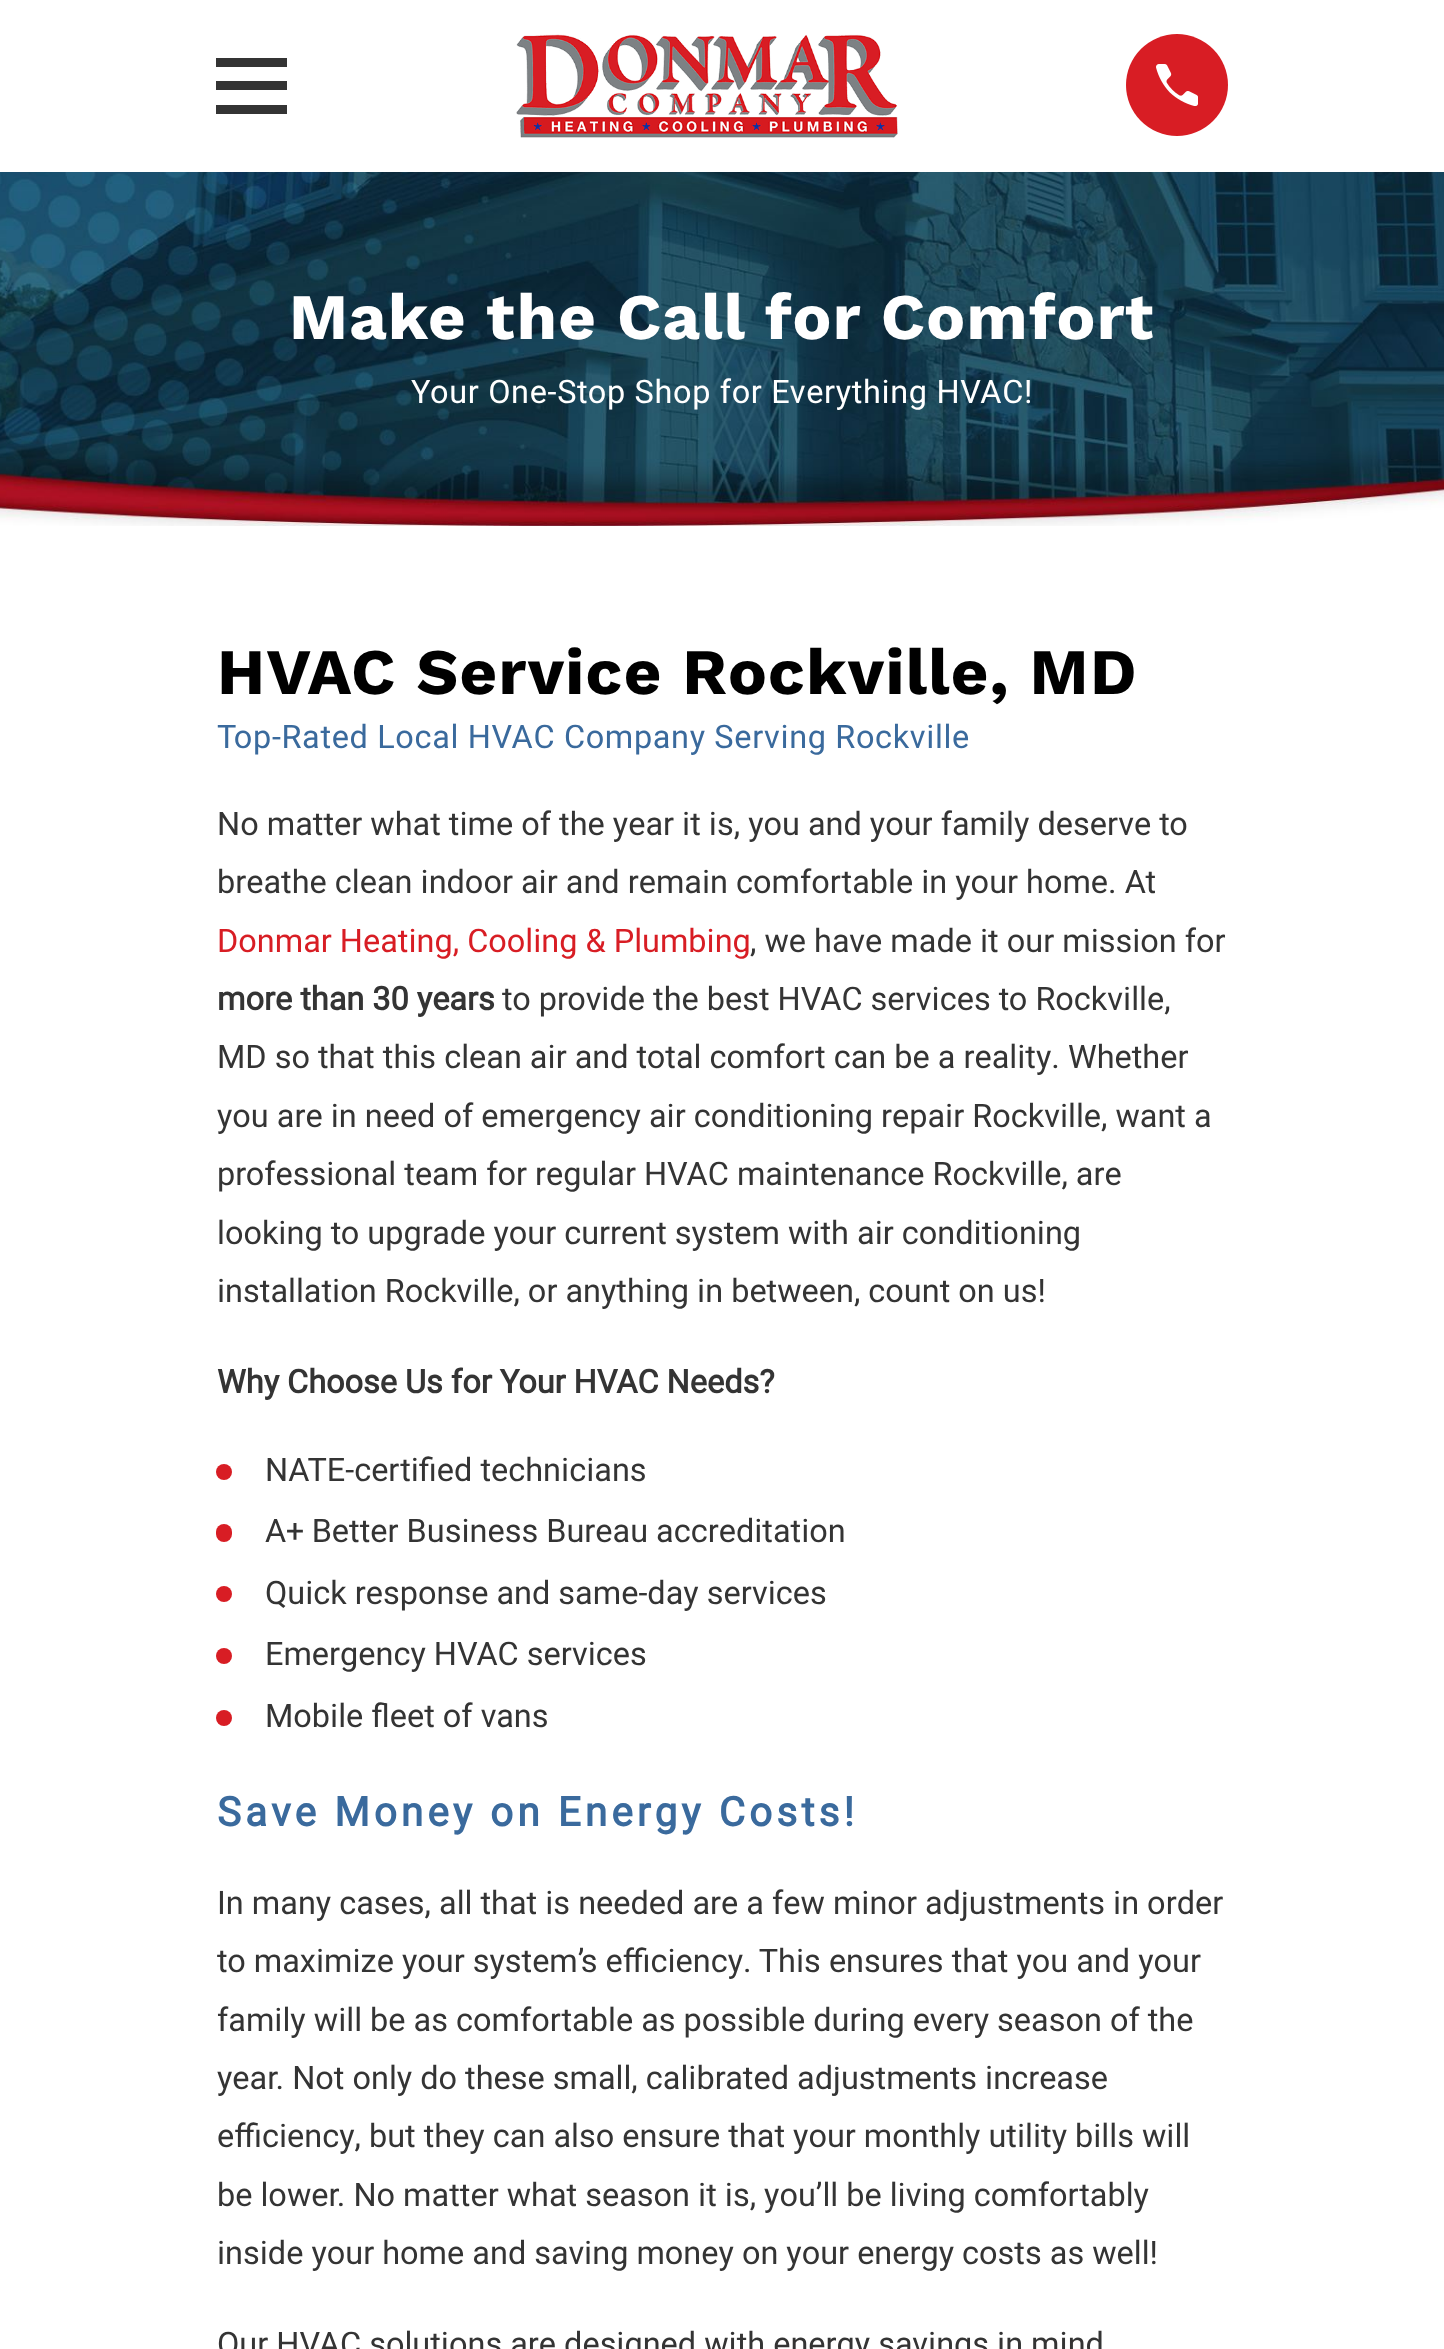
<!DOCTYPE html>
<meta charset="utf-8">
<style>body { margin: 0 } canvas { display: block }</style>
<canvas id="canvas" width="1444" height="2349"></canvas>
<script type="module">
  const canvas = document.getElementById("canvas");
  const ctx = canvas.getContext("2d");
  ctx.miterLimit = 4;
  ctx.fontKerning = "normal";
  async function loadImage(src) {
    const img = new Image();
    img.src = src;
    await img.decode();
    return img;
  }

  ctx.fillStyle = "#ffffff";
  ctx.fillRect(0, 0, 1444, 2349);
  ctx.fillStyle = "#343434";
  ctx.beginPath();
  ctx.moveTo(216, 58);
  ctx.lineTo(216, 67);
  ctx.lineTo(287, 67);
  ctx.lineTo(287, 58);
  ctx.closePath();
  ctx.moveTo(216, 81);
  ctx.lineTo(216, 90);
  ctx.lineTo(287, 90);
  ctx.lineTo(287, 81);
  ctx.closePath();
  ctx.moveTo(216, 105);
  ctx.lineTo(216, 114);
  ctx.lineTo(287, 114);
  ctx.lineTo(287, 105);
  ctx.closePath();
  ctx.fill();
  ctx.drawImage(await loadImage("img1.png"), 516, 34, 382, 104);
  ctx.fillStyle = "#d81d24";
  ctx.beginPath();
  ctx.arc(1177, 85, 51, 0, Math.PI * 2);
  ctx.fill();
  ctx.drawImage(await loadImage("img2.png"), 1156, 64, 42, 42);
  ctx.drawImage(await loadImage("img3.png"), 0, 172, 1444, 354);
  ctx.letterSpacing = "1.3px";
  ctx.font = "bold 64.9px Work Sans";
  ctx.fillStyle = "#ffffff";
  ctx.fillText("Make the Call for Comfort", 289, 339);
  ctx.letterSpacing = "0.65px";
  ctx.font = "32.45px Heebo";
  ctx.fillText("Your One-Stop Shop for Everything HVAC!", 411, 403);
  ctx.letterSpacing = "1.3px";
  ctx.font = "bold 64.9px Work Sans";
  ctx.fillStyle = "#000000";
  ctx.fillText("HVAC Service Rockville, MD", 217, 694);
  ctx.letterSpacing = "0.65px";
  ctx.font = "32.45px Heebo";
  ctx.fillStyle = "#3a6a9d";
  ctx.fillText("Top-Rated Local HVAC Company Serving Rockville", 217, 748);
  ctx.letterSpacing = "0px";
  ctx.fillStyle = "#343434";
  ctx.fillText("No matter what time of the year it is, you and your family deserve to", 217, 835);
  ctx.fillText("breathe clean indoor air and remain comfortable in your home. At", 217, 893);
  ctx.fillStyle = "#d81d24";
  ctx.fillText("Donmar Heating, Cooling & Plumbing", 217, 952);
  ctx.fillStyle = "#343434";
  ctx.fillText(", we have made it our mission for", 750, 952);
  ctx.font = "bold 32.45px Heebo";
  ctx.fillText("more than 30 years", 217, 1010);
  ctx.font = "32.45px Heebo";
  ctx.fillText("to provide the best HVAC services to Rockville,", 502, 1010);
  ctx.fillText("MD so that this clean air and total comfort can be a reality. Whether", 217, 1068);
  ctx.fillText("you are in need of emergency air conditioning repair Rockville, want a", 217, 1127);
  ctx.fillText("professional team for regular HVAC maintenance Rockville, are", 217, 1185);
  ctx.fillText("looking to upgrade your current system with air conditioning", 217, 1244);
  ctx.fillText("installation Rockville, or anything in between, count on us!", 217, 1302);
  ctx.font = "bold 32.45px Heebo";
  ctx.fillText("Why Choose Us for Your HVAC Needs?", 217, 1393);
  ctx.fillStyle = "#d81d24";
  ctx.beginPath();
  ctx.arc(224, 1472, 8, 0, Math.PI * 2);
  ctx.fill();
  ctx.font = "32.45px Heebo";
  ctx.fillStyle = "#343434";
  ctx.fillText("NATE-certified technicians", 265, 1481);
  ctx.fillStyle = "#d81d24";
  ctx.beginPath();
  ctx.roundRect(216, 1524, 16, 18, 8);
  ctx.fill();
  ctx.fillStyle = "#343434";
  ctx.fillText("A+ Better Business Bureau accreditation", 265, 1542);
  ctx.fillStyle = "#d81d24";
  ctx.beginPath();
  ctx.arc(224, 1594, 8, 0, Math.PI * 2);
  ctx.fill();
  ctx.fillStyle = "#343434";
  ctx.fillText("Quick response and same-day services", 265, 1604);
  ctx.fillStyle = "#d81d24";
  ctx.beginPath();
  ctx.arc(224, 1656, 8, 0, Math.PI * 2);
  ctx.fill();
  ctx.fillStyle = "#343434";
  ctx.fillText("Emergency HVAC services", 265, 1665);
  ctx.fillStyle = "#d81d24";
  ctx.beginPath();
  ctx.arc(224, 1718, 8, 0, Math.PI * 2);
  ctx.fill();
  ctx.fillStyle = "#343434";
  ctx.fillText("Mobile fleet of vans", 265, 1727);
  ctx.letterSpacing = "4.05px";
  ctx.font = "bold 40.5px Heebo";
  ctx.fillStyle = "#3a6a9d";
  ctx.fillText("Save Money on Energy Costs!", 217, 1826);
  ctx.letterSpacing = "0px";
  ctx.font = "32.45px Heebo";
  ctx.fillStyle = "#343434";
  ctx.fillText("In many cases, all that is needed are a few minor adjustments in order", 217, 1914);
  ctx.fillText("to maximize your system’s efficiency. This ensures that you and your", 217, 1972);
  ctx.fillText("family will be as comfortable as possible during every season of the", 217, 2031);
  ctx.fillText("year. Not only do these small, calibrated adjustments increase", 217, 2089);
  ctx.fillText("efficiency, but they can also ensure that your monthly utility bills will", 217, 2147);
  ctx.fillText("be lower. No matter what season it is, you’ll be living comfortably", 217, 2206);
  ctx.fillText("inside your home and saving money on your energy costs as well!", 217, 2264);
  ctx.fillText("Our HVAC solutions are designed with energy savings in mind", 217, 2355);
</script>
